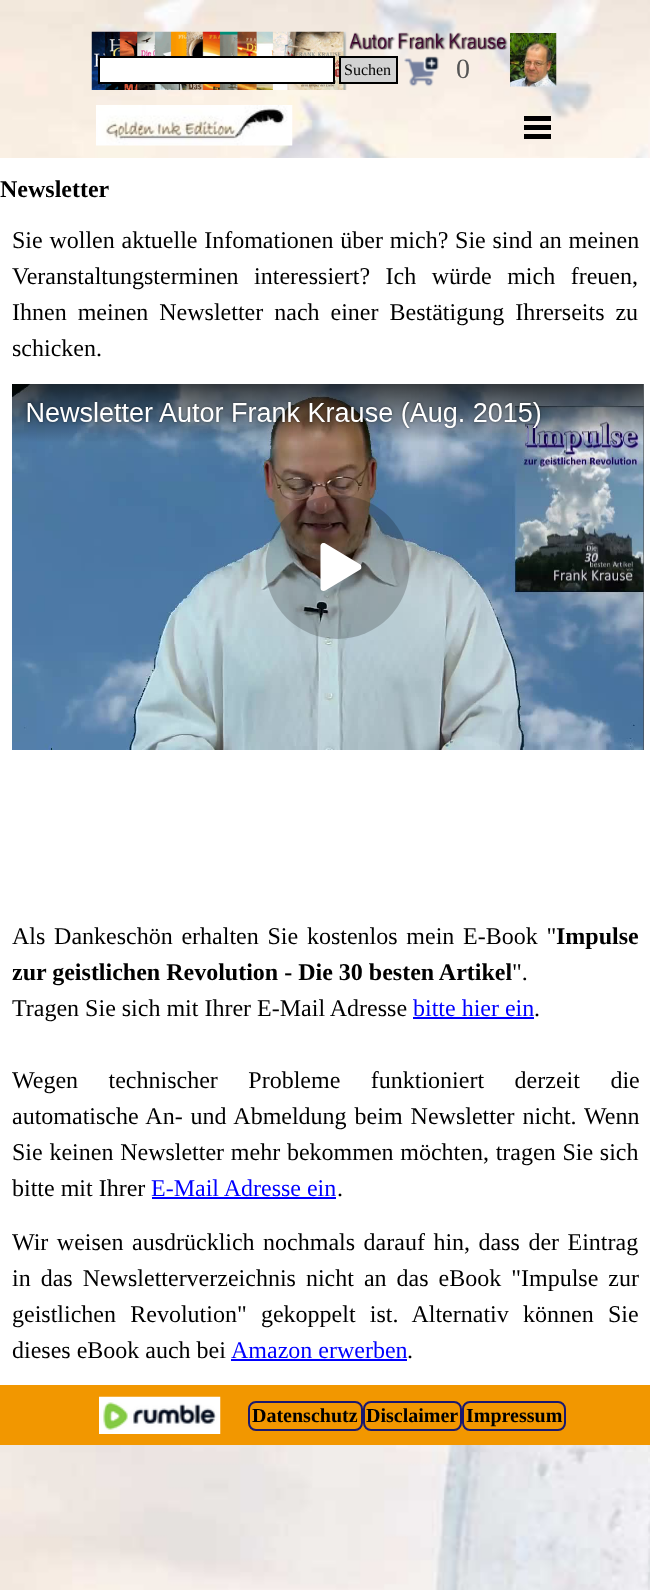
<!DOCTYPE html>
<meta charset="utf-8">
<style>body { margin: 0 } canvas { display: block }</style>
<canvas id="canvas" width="650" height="1590"></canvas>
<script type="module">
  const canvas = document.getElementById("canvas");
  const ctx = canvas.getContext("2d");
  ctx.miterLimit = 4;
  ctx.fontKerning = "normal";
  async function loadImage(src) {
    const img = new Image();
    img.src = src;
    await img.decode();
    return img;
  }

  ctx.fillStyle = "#ffffff";
  ctx.fillRect(0, 0, 650, 1590);
  ctx.drawImage(await loadImage("img1.png"), 0, 0, 650, 1590);
  ctx.drawImage(await loadImage("img2.png"), 91, 31, 256, 59);
  ctx.drawImage(await loadImage("img3.png"), 349, 32, 159, 18);
  ctx.drawImage(await loadImage("img4.png"), 510, 33, 47, 54);
  ctx.beginPath();
  ctx.rect(99, 57, 235, 26);
  ctx.fill();
  ctx.strokeStyle = "#000000";
  ctx.lineWidth = 2;
  ctx.stroke();
  ctx.fillStyle = "#d3d3d3";
  ctx.beginPath();
  ctx.rect(340, 57, 57, 26);
  ctx.fill();
  ctx.stroke();
  ctx.font = "16px Liberation Serif";
  ctx.fillStyle = "#000000";
  ctx.fillText("Suchen", 344, 75);
  ctx.drawImage(await loadImage("img5.png"), 404, 56, 35, 31);
  ctx.font = "28px Liberation Serif";
  ctx.fillStyle = "#555555";
  ctx.fillText("0", 456, 78);
  ctx.drawImage(await loadImage("img6.png"), 96, 105, 197, 41);
  ctx.fillStyle = "#000000";
  ctx.fillRect(524, 116, 27, 5);
  ctx.fillRect(524, 125, 27, 5);
  ctx.fillRect(524, 134, 27, 5);
  ctx.fillStyle = "#ffffff";
  ctx.fillRect(0, 158, 650, 1227);
  ctx.font = "bold 24px Liberation Serif";
  ctx.fillStyle = "#000000";
  ctx.fillText("Newsletter", 0, 197);
  ctx.wordSpacing = "0.75px";
  ctx.font = "24px Liberation Serif";
  ctx.fillText("Sie wollen aktuelle Infomationen über mich? Sie sind an meinen", 12, 248);
  ctx.wordSpacing = "9.5px";
  ctx.fillText("Veranstaltungsterminen interessiert? Ich würde mich freuen,", 12, 284);
  ctx.wordSpacing = "5px";
  ctx.fillText("Ihnen meinen Newsletter nach einer Bestätigung Ihrerseits zu", 12, 320);
  ctx.wordSpacing = "0px";
  ctx.fillText("schicken.", 12, 356);
  ctx.drawImage(await loadImage("img7.png"), 12, 384, 632, 366);
  ctx.wordSpacing = "2.75px";
  ctx.fillText("Als Dankeschön erhalten Sie kostenlos mein E-Book \"", 12, 944);
  ctx.wordSpacing = "0px";
  ctx.font = "bold 24px Liberation Serif";
  ctx.fillText("Impulse", 556, 944);
  ctx.fillText("zur geistlichen Revolution - Die 30 besten Artikel", 12, 980);
  ctx.font = "24px Liberation Serif";
  ctx.fillText("\".", 512, 980);
  ctx.fillText("Tragen Sie sich mit Ihrer E-Mail Adresse", 12, 1016);
  ctx.fillStyle = "#0000ff";
  ctx.fillText("bitte hier ein", 413, 1016);
  ctx.fillStyle = "#000000";
  ctx.fillText(".", 534, 1016);
  ctx.fillStyle = "#0000ff";
  ctx.fillRect(413, 1017, 121, 2);
  ctx.wordSpacing = "24.5px";
  ctx.fillStyle = "#000000";
  ctx.fillText("Wegen technischer Probleme funktioniert derzeit die", 12, 1088);
  ctx.wordSpacing = "2px";
  ctx.fillText("automatische An- und Abmeldung beim Newsletter nicht. Wenn", 12, 1124);
  ctx.wordSpacing = "0.75px";
  ctx.fillText("Sie keinen Newsletter mehr bekommen möchten, tragen Sie sich", 12, 1160);
  ctx.wordSpacing = "0px";
  ctx.fillText("bitte mit Ihrer", 12, 1196);
  ctx.fillStyle = "#0000ff";
  ctx.fillText("E-Mail Adresse ein", 151, 1196);
  ctx.fillStyle = "#000000";
  ctx.fillText(".", 337, 1196);
  ctx.fillStyle = "#0000ff";
  ctx.fillRect(152, 1197, 184, 2);
  ctx.wordSpacing = "2.5px";
  ctx.fillStyle = "#000000";
  ctx.fillText("Wir weisen ausdrücklich nochmals darauf hin, dass der Eintrag", 12, 1250);
  ctx.wordSpacing = "4px";
  ctx.fillText("in das Newsletterverzeichnis nicht an das eBook \"Impulse zur", 12, 1286);
  ctx.wordSpacing = "8.25px";
  ctx.fillText("geistlichen Revolution\" gekoppelt ist. Alternativ können Sie", 12, 1322);
  ctx.wordSpacing = "0px";
  ctx.fillText("dieses eBook auch bei", 12, 1358);
  ctx.fillStyle = "#0000ff";
  ctx.fillText("Amazon erwerben", 231, 1358);
  ctx.fillStyle = "#000000";
  ctx.fillText(".", 407, 1358);
  ctx.fillStyle = "#0000ff";
  ctx.fillRect(231, 1359, 176, 2);
  ctx.fillStyle = "#f29700";
  ctx.fillRect(0, 1385, 650, 60);
  ctx.drawImage(await loadImage("img8.png"), 99, 1396, 122, 38);
  ctx.beginPath();
  ctx.roundRect(249, 1402, 113, 28, 7);
  ctx.strokeStyle = "#191970";
  ctx.stroke();
  ctx.font = "bold 20px Liberation Serif";
  ctx.fillStyle = "#000000";
  ctx.fillText("Datenschutz", 252, 1422);
  ctx.beginPath();
  ctx.roundRect(364, 1402, 97, 28, 7);
  ctx.stroke();
  ctx.fillText("Disclaimer", 366, 1422);
  ctx.beginPath();
  ctx.roundRect(463, 1402, 102, 28, 7);
  ctx.stroke();
  ctx.fillText("Impressum", 466, 1422);
</script>
